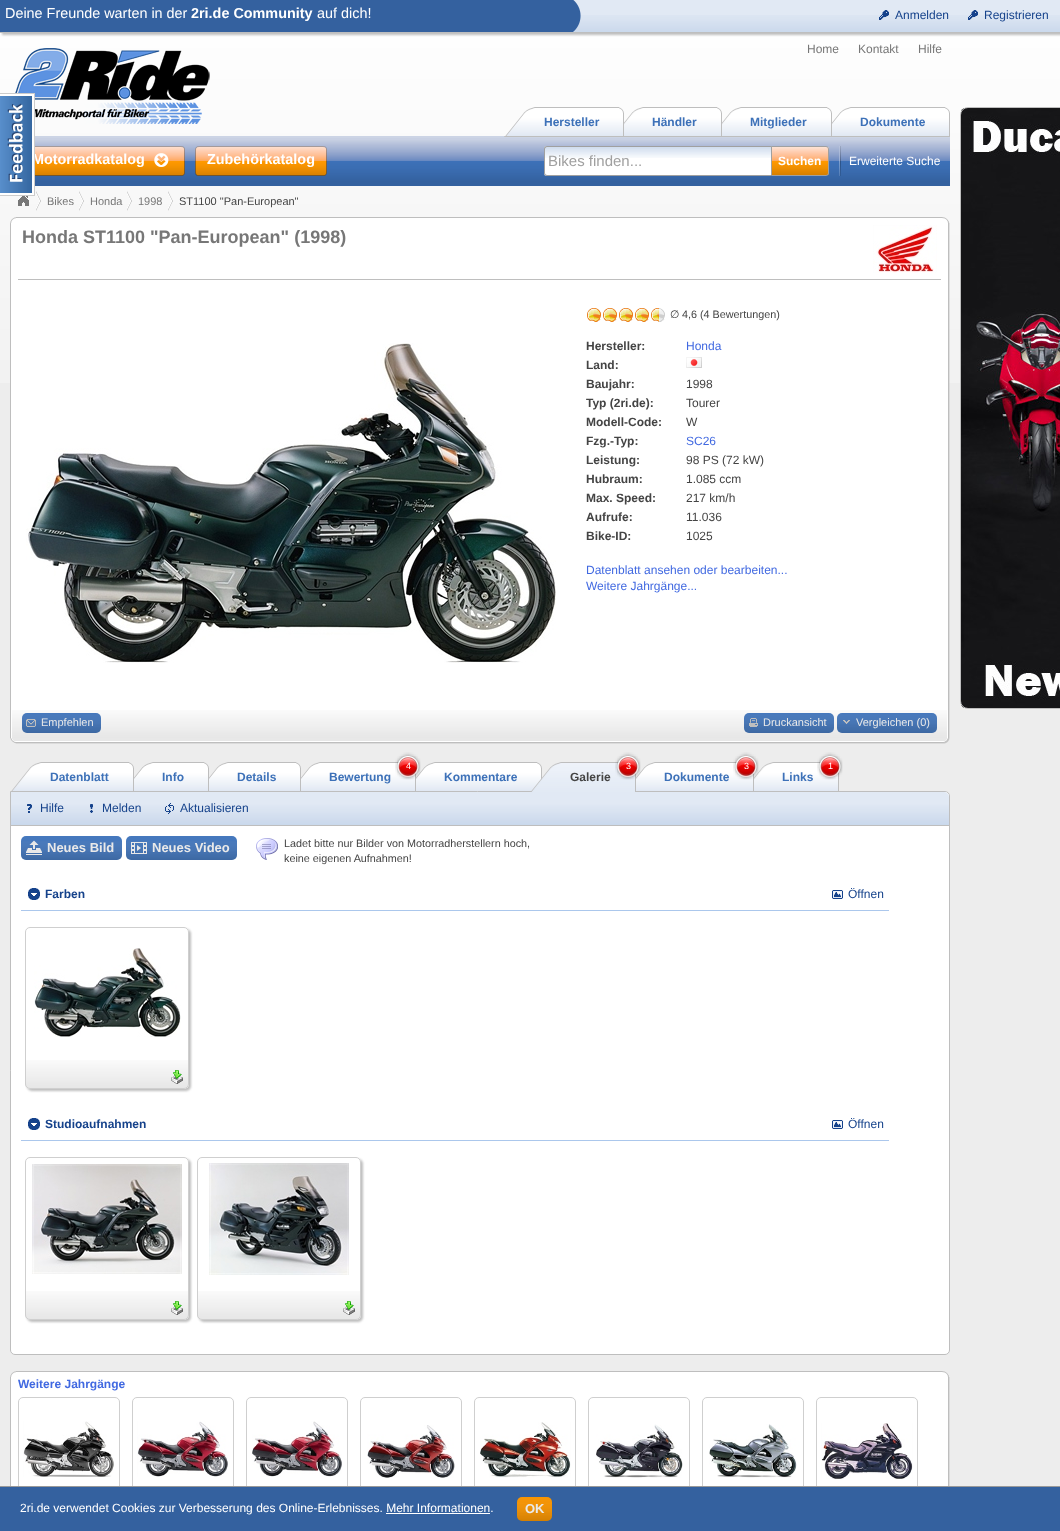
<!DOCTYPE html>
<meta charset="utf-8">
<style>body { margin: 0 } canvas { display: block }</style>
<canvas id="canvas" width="1060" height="1531"></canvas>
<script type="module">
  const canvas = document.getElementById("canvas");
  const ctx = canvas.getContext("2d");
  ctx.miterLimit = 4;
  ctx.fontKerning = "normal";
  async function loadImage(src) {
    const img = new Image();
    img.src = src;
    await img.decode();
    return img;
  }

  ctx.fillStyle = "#ededed";
  ctx.fillRect(0, 0, 1060, 1531);
  ctx.drawImage(await loadImage("img1.png"), 0, 33, 1060, 350);
  ctx.fillStyle = "#bebebe";
  ctx.filter = "blur(1px)";
  ctx.beginPath();
  ctx.rect(2, 2, 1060, 33);
  ctx.fill();
  ctx.filter = "none";
  ctx.fillStyle = "#e1e9f4";
  ctx.fillRect(573, 0, 487, 15);
  ctx.drawImage(await loadImage("img2.png"), 573, 15, 487, 17);
  ctx.fillStyle = "#bebebe";
  ctx.fillRect(0, 32, 4, 1);
  ctx.fillStyle = "#34619f";
  ctx.fillRect(0, 0, 572, 32);
  ctx.font = "14.4px Liberation Sans";
  ctx.fillStyle = "#ffffff";
  ctx.fillText("Deine Freunde warten in der", 5, 18);
  ctx.font = "bold 14.4px Liberation Sans";
  ctx.fillText("2ri.de Community", 191, 18);
  ctx.font = "14.4px Liberation Sans";
  ctx.fillText("auf dich!", 317, 18);
  ctx.drawImage(await loadImage("img3.png"), 572, 0, 9, 32);
  ctx.drawImage(await loadImage("img4.png"), 879, 10, 10, 10);
  ctx.font = "12px Liberation Sans";
  ctx.fillStyle = "#15428b";
  ctx.fillText("Anmelden", 895, 19);
  ctx.drawImage(await loadImage("img4.png"), 968, 10, 10, 10);
  ctx.fillText("Registrieren", 984, 19);
  ctx.drawImage(await loadImage("img6.png"), 15, 48, 195, 76);
  ctx.drawImage(await loadImage("img13.png"), 35, 136, 915, 50);
  ctx.drawImage(await loadImage("img14.png"), 35, 146, 150, 30);
  ctx.font = "bold 14.4px Liberation Sans";
  ctx.fillStyle = "#ffffff";
  ctx.fillText("Motorradkatalog", 32, 164);
  ctx.drawImage(await loadImage("img5.png"), 0, 93, 35, 103);
  ctx.font = "12px Liberation Sans";
  ctx.fillStyle = "#777777";
  ctx.fillText("Home", 807, 53);
  ctx.fillText("Kontakt", 858, 53);
  ctx.fillText("Hilfe", 918, 53);
  ctx.drawImage(await loadImage("img7.png"), 504, 107, 115, 30);
  ctx.font = "bold 12px Liberation Sans";
  ctx.fillStyle = "#3d71b8";
  ctx.fillText("Hersteller", 544, 126);
  ctx.drawImage(await loadImage("img9.png"), 619, 107, 98, 30);
  ctx.drawImage(await loadImage("img8.png"), 619, 107, 5, 29);
  ctx.fillText("Händler", 652, 126);
  ctx.drawImage(await loadImage("img10.png"), 717, 107, 110, 30);
  ctx.drawImage(await loadImage("img8.png"), 717, 107, 5, 29);
  ctx.fillText("Mitglieder", 750, 126);
  ctx.drawImage(await loadImage("img11.png"), 827, 107, 118, 30);
  ctx.drawImage(await loadImage("img8.png"), 827, 107, 5, 29);
  ctx.fillText("Dokumente", 860, 126);
  ctx.drawImage(await loadImage("img12.png"), 945, 107, 5, 30);
  ctx.drawImage(await loadImage("img15.png"), 154, 153, 15, 14);
  ctx.drawImage(await loadImage("img16.png"), 195, 146, 132, 30);
  ctx.font = "bold 14.4px Liberation Sans";
  ctx.fillStyle = "#ffffff";
  ctx.fillText("Zubehörkatalog", 207, 164);
  ctx.beginPath();
  ctx.roundRect(544, 146, 227, 30, [3, 0, 0, 3]);
  ctx.fill();
  ctx.drawImage(await loadImage("img17.png"), 544, 147, 227, 11);
  ctx.fillStyle = "#a0a0a0";
  ctx.beginPath();
  ctx.moveTo(547, 146);
  ctx.lineTo(771, 146);
  ctx.lineTo(771, 176);
  ctx.lineTo(547, 176);
  ctx.bezierCurveTo(545, 176, 544, 175, 544, 173);
  ctx.lineTo(544, 149);
  ctx.bezierCurveTo(544, 147, 545, 146, 547, 146);
  ctx.closePath();
  ctx.moveTo(547, 147);
  ctx.lineTo(771, 147);
  ctx.lineTo(771, 175);
  ctx.lineTo(547, 175);
  ctx.bezierCurveTo(546, 175, 545, 174, 545, 173);
  ctx.lineTo(545, 149);
  ctx.bezierCurveTo(545, 148, 546, 147, 547, 147);
  ctx.closePath();
  ctx.fill("evenodd");
  ctx.font = "15px Liberation Sans";
  ctx.fillText("Bikes finden...", 548, 166);
  ctx.drawImage(await loadImage("img18.png"), 772, 147, 57, 28);
  ctx.beginPath();
  ctx.roundRect(771.5, 146.5, 57, 29, [0, 2.5, 2.5, 0]);
  ctx.strokeStyle = "#a0a0a0";
  ctx.stroke();
  ctx.font = "bold 12px Liberation Sans";
  ctx.fillStyle = "#ffffff";
  ctx.fillText("Suchen", 778, 165);
  ctx.drawImage(await loadImage("img19.png"), 839, 146, 2, 30);
  ctx.font = "12px Liberation Sans";
  ctx.fillText("Erweiterte Suche", 849, 165);
  ctx.drawImage(await loadImage("img20.png"), 961, 108, 99, 600);
  ctx.beginPath();
  ctx.roundRect(960.5, 107.5, 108, 601, 7.5);
  ctx.strokeStyle = "#bebebe";
  ctx.stroke();
  ctx.drawImage(await loadImage("img21.png"), 36, 191, 5, 20);
  ctx.drawImage(await loadImage("img22.png"), 18, 196, 11, 10);
  ctx.drawImage(await loadImage("img21.png"), 79, 191, 5, 20);
  ctx.font = "11px Liberation Sans";
  ctx.fillStyle = "#777777";
  ctx.fillText("Bikes", 47, 205);
  ctx.drawImage(await loadImage("img21.png"), 127, 191, 5, 20);
  ctx.fillText("Honda", 90, 205);
  ctx.drawImage(await loadImage("img21.png"), 168, 191, 5, 20);
  ctx.fillText("1998", 138, 205);
  ctx.fillStyle = "#444444";
  ctx.fillText("ST1100 \"Pan-European\"", 179, 205);
  ctx.drawImage(await loadImage("img23.png"), 16, 217, 934, 6);
  ctx.drawImage(await loadImage("img24.png"), 10, 217, 6, 10);
  ctx.drawImage(await loadImage("img25.png"), 11, 223, 939, 515);
  ctx.fillStyle = "#bebebe";
  ctx.fillRect(10, 227, 1, 511);
  ctx.drawImage(await loadImage("img26.png"), 12, 710, 935, 28);
  ctx.fillRect(18, 279, 923, 1);
  ctx.font = "bold 18px Liberation Sans";
  ctx.fillStyle = "#777777";
  ctx.fillText("Honda ST1100 \"Pan-European\" (1998)", 22, 243);
  ctx.drawImage(await loadImage("img27.png"), 873, 225, 64, 48);
  ctx.drawImage(await loadImage("img28.png"), 26, 343, 530, 320);
  ctx.drawImage(await loadImage("img29.png"), 587, 308, 78, 14);
  ctx.drawImage(await loadImage("img30.png"), 587, 308, 72, 14);
  ctx.font = "10.8px DejaVu Sans";
  ctx.fillStyle = "#444444";
  ctx.fillText("∅", 670, 318);
  ctx.font = "10.8px Liberation Sans";
  ctx.fillText("4,6 (4 Bewertungen)", 682, 318);
  ctx.font = "bold 12px Liberation Sans";
  ctx.fillText("Hersteller:", 586, 350);
  ctx.font = "12px Liberation Sans";
  ctx.fillStyle = "#4169e1";
  ctx.fillText("Honda", 686, 350);
  ctx.font = "bold 12px Liberation Sans";
  ctx.fillStyle = "#444444";
  ctx.fillText("Land:", 586, 369);
  ctx.drawImage(await loadImage("img31.png"), 686, 357, 16, 11);
  ctx.fillText("Baujahr:", 586, 388);
  ctx.font = "12px Liberation Sans";
  ctx.fillText("1998", 686, 388);
  ctx.font = "bold 12px Liberation Sans";
  ctx.fillText("Typ (2ri.de):", 586, 407);
  ctx.font = "12px Liberation Sans";
  ctx.fillText("Tourer", 686, 407);
  ctx.font = "bold 12px Liberation Sans";
  ctx.fillText("Modell-Code:", 586, 426);
  ctx.font = "12px Liberation Sans";
  ctx.fillText("W", 686, 426);
  ctx.font = "bold 12px Liberation Sans";
  ctx.fillText("Fzg.-Typ:", 586, 445);
  ctx.font = "12px Liberation Sans";
  ctx.fillStyle = "#4169e1";
  ctx.fillText("SC26", 686, 445);
  ctx.font = "bold 12px Liberation Sans";
  ctx.fillStyle = "#444444";
  ctx.fillText("Leistung:", 586, 464);
  ctx.font = "12px Liberation Sans";
  ctx.fillText("98 PS (72 kW)", 686, 464);
  ctx.font = "bold 12px Liberation Sans";
  ctx.fillText("Hubraum:", 586, 483);
  ctx.font = "12px Liberation Sans";
  ctx.fillText("1.085 ccm", 686, 483);
  ctx.font = "bold 12px Liberation Sans";
  ctx.fillText("Max. Speed:", 586, 502);
  ctx.font = "12px Liberation Sans";
  ctx.fillText("217 km/h", 686, 502);
  ctx.font = "bold 12px Liberation Sans";
  ctx.fillText("Aufrufe:", 586, 521);
  ctx.font = "12px Liberation Sans";
  ctx.fillText("11.036", 686, 521);
  ctx.font = "bold 12px Liberation Sans";
  ctx.fillText("Bike-ID:", 586, 540);
  ctx.font = "12px Liberation Sans";
  ctx.fillText("1025", 686, 540);
  ctx.fillStyle = "#4169e1";
  ctx.fillText("Datenblatt ansehen oder bearbeiten...", 586, 574);
  ctx.fillText("Weitere Jahrgänge...", 586, 590);
  ctx.fillStyle = "#4578bd";
  ctx.beginPath();
  ctx.roundRect(22, 713, 79, 20, 5);
  ctx.fill();
  ctx.drawImage(await loadImage("img32.png"), 22, 714, 79, 19);
  ctx.drawImage(await loadImage("img33.png"), 26, 719, 10, 8);
  ctx.font = "11px Liberation Sans";
  ctx.fillStyle = "#e9e9e9";
  ctx.fillText("Empfehlen", 41, 726);
  ctx.fillStyle = "#4578bd";
  ctx.beginPath();
  ctx.roundRect(744, 713, 90, 20, 5);
  ctx.fill();
  ctx.drawImage(await loadImage("img34.png"), 744, 714, 90, 19);
  ctx.drawImage(await loadImage("img35.png"), 749, 718, 9, 9);
  ctx.fillStyle = "#e9e9e9";
  ctx.fillText("Druckansicht", 763, 726);
  ctx.fillStyle = "#4578bd";
  ctx.beginPath();
  ctx.roundRect(837, 713, 100, 20, 5);
  ctx.fill();
  ctx.drawImage(await loadImage("img36.png"), 837, 714, 100, 19);
  ctx.drawImage(await loadImage("img37.png"), 843, 720, 7, 4);
  ctx.fillStyle = "#e9e9e9";
  ctx.fillText("Vergleichen (0)", 856, 726);
  ctx.drawImage(await loadImage("img38.png"), 16, 738, 934, 6);
  ctx.drawImage(await loadImage("img39.png"), 10, 738, 6, 6);
  ctx.drawImage(await loadImage("img48.png"), 301, 762, 110, 29);
  ctx.drawImage(await loadImage("img49.png"), 411, 773, 5, 18);
  ctx.drawImage(await loadImage("img50.png"), 416, 762, 121, 29);
  ctx.drawImage(await loadImage("img40.png"), 395, 752, 26, 28);
  ctx.font = "9px Liberation Sans";
  ctx.fillStyle = "#ffffff";
  ctx.fillText("4", 406, 769);
  ctx.drawImage(await loadImage("img51.png"), 537, 762, 5, 24);
  ctx.beginPath();
  ctx.roundRect(10.5, 791.5, 939, 563, [0, 4.5, 4.5, 4.5]);
  ctx.fill();
  ctx.stroke();
  ctx.drawImage(await loadImage("img52.png"), 531, 762, 100, 30);
  ctx.drawImage(await loadImage("img53.png"), 631, 773, 5, 19);
  ctx.drawImage(await loadImage("img54.png"), 636, 762, 113, 29);
  ctx.drawImage(await loadImage("img41.png"), 615, 752, 26, 28);
  ctx.fillText("3", 626, 769);
  ctx.drawImage(await loadImage("img49.png"), 749, 773, 5, 18);
  ctx.drawImage(await loadImage("img55.png"), 754, 762, 80, 29);
  ctx.drawImage(await loadImage("img42.png"), 733, 752, 26, 28);
  ctx.fillText("3", 744, 769);
  ctx.drawImage(await loadImage("img56.png"), 834, 772, 5, 19);
  ctx.drawImage(await loadImage("img43.png"), 817, 752, 26, 28);
  ctx.fillText("1", 828, 769);
  ctx.drawImage(await loadImage("img44.png"), 11, 762, 118, 29);
  ctx.font = "bold 12px Liberation Sans";
  ctx.fillStyle = "#3d71b8";
  ctx.fillText("Datenblatt", 50, 781);
  ctx.drawImage(await loadImage("img45.png"), 129, 762, 5, 29);
  ctx.drawImage(await loadImage("img46.png"), 134, 762, 70, 29);
  ctx.fillText("Info", 162, 781);
  ctx.drawImage(await loadImage("img45.png"), 204, 762, 5, 29);
  ctx.drawImage(await loadImage("img47.png"), 209, 762, 87, 29);
  ctx.fillText("Details", 237, 781);
  ctx.drawImage(await loadImage("img45.png"), 296, 762, 5, 29);
  ctx.fillText("Bewertung", 329, 781);
  ctx.fillText("Kommentare", 444, 781);
  ctx.fillStyle = "#444444";
  ctx.fillText("Galerie", 570, 781);
  ctx.fillStyle = "#3d71b8";
  ctx.fillText("Dokumente", 664, 781);
  ctx.fillText("Links", 782, 781);
  ctx.drawImage(await loadImage("img57.png"), 11, 792, 938, 33);
  ctx.fillStyle = "#bebebe";
  ctx.fillRect(11, 825, 938, 1);
  ctx.drawImage(await loadImage("img58.png"), 27, 804, 5, 9);
  ctx.font = "12px Liberation Sans";
  ctx.fillStyle = "#15428b";
  ctx.fillText("Hilfe", 40, 812);
  ctx.drawImage(await loadImage("img59.png"), 90, 804, 3, 9);
  ctx.fillText("Melden", 102, 812);
  ctx.drawImage(await loadImage("img60.png"), 165, 803, 9, 11);
  ctx.fillText("Aktualisieren", 180, 812);
  ctx.fillStyle = "#4578bd";
  ctx.beginPath();
  ctx.roundRect(21, 836, 101, 24, 5);
  ctx.fill();
  ctx.drawImage(await loadImage("img61.png"), 21, 841, 101, 19);
  ctx.drawImage(await loadImage("img62.png"), 26, 840, 16, 15);
  ctx.font = "bold 13px Liberation Sans";
  ctx.fillStyle = "#e9e9e9";
  ctx.fillText("Neues Bild", 47, 852);
  ctx.fillStyle = "#4578bd";
  ctx.beginPath();
  ctx.roundRect(126, 836, 111, 24, 5);
  ctx.fill();
  ctx.drawImage(await loadImage("img63.png"), 126, 841, 111, 19);
  ctx.drawImage(await loadImage("img64.png"), 131, 842, 16, 12);
  ctx.fillStyle = "#e9e9e9";
  ctx.fillText("Neues Video", 152, 852);
  ctx.drawImage(await loadImage("img65.png"), 256, 838, 22, 22);
  ctx.font = "10.8px Liberation Sans";
  ctx.fillStyle = "#444444";
  ctx.fillText("Ladet bitte nur Bilder von Motorradherstellern hoch,", 284, 847);
  ctx.fillText("keine eigenen Aufnahmen!", 284, 862);
  ctx.fillStyle = "#abc7ec";
  ctx.fillRect(21, 910, 868, 1);
  ctx.drawImage(await loadImage("img66.png"), 28, 888, 12, 12);
  ctx.font = "bold 12px Liberation Sans";
  ctx.fillStyle = "#15428b";
  ctx.fillText("Farben", 45, 898);
  ctx.drawImage(await loadImage("img67.png"), 832, 890, 11, 9);
  ctx.font = "12px Liberation Sans";
  ctx.fillText("Öffnen", 848, 898);
  ctx.fillStyle = "#bebebe";
  ctx.filter = "blur(1px)";
  ctx.beginPath();
  ctx.roundRect(27, 929, 164, 162, 5);
  ctx.fill();
  ctx.filter = "none";
  ctx.fillStyle = "#ffffff";
  ctx.beginPath();
  ctx.roundRect(25, 927, 164, 162, 5);
  ctx.fill();
  ctx.drawImage(await loadImage("img68.png"), 25, 1060, 164, 28);
  ctx.beginPath();
  ctx.roundRect(25.5, 927.5, 163, 161, 4.5);
  ctx.strokeStyle = "#cfcfcf";
  ctx.stroke();
  ctx.drawImage(await loadImage("img69.png"), 34, 948, 147, 89);
  ctx.drawImage(await loadImage("img70.png"), 171, 1070, 12, 14);
  ctx.fillStyle = "#abc7ec";
  ctx.fillRect(21, 1140, 868, 1);
  ctx.drawImage(await loadImage("img66.png"), 28, 1118, 12, 12);
  ctx.font = "bold 12px Liberation Sans";
  ctx.fillStyle = "#15428b";
  ctx.fillText("Studioaufnahmen", 45, 1128);
  ctx.drawImage(await loadImage("img67.png"), 832, 1120, 11, 9);
  ctx.font = "12px Liberation Sans";
  ctx.fillText("Öffnen", 848, 1128);
  ctx.fillStyle = "#bebebe";
  ctx.filter = "blur(1px)";
  ctx.beginPath();
  ctx.roundRect(27, 1159, 164, 163, 5);
  ctx.fill();
  ctx.filter = "none";
  ctx.fillStyle = "#ffffff";
  ctx.beginPath();
  ctx.roundRect(25, 1157, 164, 163, 5);
  ctx.fill();
  ctx.drawImage(await loadImage("img68.png"), 25, 1291, 164, 28);
  ctx.beginPath();
  ctx.roundRect(25.5, 1157.5, 163, 162, 4.5);
  ctx.stroke();
  ctx.drawImage(await loadImage("img71.png"), 32, 1164, 150, 110);
  ctx.drawImage(await loadImage("img70.png"), 171, 1301, 12, 14);
  ctx.fillStyle = "#bebebe";
  ctx.filter = "blur(1px)";
  ctx.beginPath();
  ctx.roundRect(199, 1159, 164, 163, 5);
  ctx.fill();
  ctx.filter = "none";
  ctx.fillStyle = "#ffffff";
  ctx.beginPath();
  ctx.roundRect(197, 1157, 164, 163, 5);
  ctx.fill();
  ctx.drawImage(await loadImage("img68.png"), 197, 1291, 164, 28);
  ctx.beginPath();
  ctx.roundRect(197.5, 1157.5, 163, 162, 4.5);
  ctx.stroke();
  ctx.drawImage(await loadImage("img72.png"), 209, 1163, 140, 112);
  ctx.drawImage(await loadImage("img70.png"), 343, 1301, 12, 14);
  ctx.drawImage(await loadImage("img73.png"), 16, 1371, 933, 6);
  ctx.drawImage(await loadImage("img74.png"), 10, 1371, 6, 6);
  ctx.drawImage(await loadImage("img75.png"), 11, 1377, 939, 109);
  ctx.fillStyle = "#bebebe";
  ctx.fillRect(10, 1377, 1, 109);
  ctx.font = "bold 12px Liberation Sans";
  ctx.fillStyle = "#4169e1";
  ctx.fillText("Weitere Jahrgänge", 18, 1388);
  ctx.beginPath();
  ctx.roundRect(18.5, 1397.5, 101, 104, 4.5);
  ctx.stroke();
  ctx.drawImage(await loadImage("img76.png"), 23, 1421, 91, 56);
  ctx.beginPath();
  ctx.roundRect(132.5, 1397.5, 101, 104, 4.5);
  ctx.stroke();
  ctx.drawImage(await loadImage("img77.png"), 137, 1421, 91, 56);
  ctx.beginPath();
  ctx.roundRect(246.5, 1397.5, 101, 104, 4.5);
  ctx.stroke();
  ctx.drawImage(await loadImage("img78.png"), 252, 1421, 90, 56);
  ctx.beginPath();
  ctx.roundRect(360.5, 1397.5, 101, 104, 4.5);
  ctx.stroke();
  ctx.drawImage(await loadImage("img79.png"), 367, 1425, 88, 53);
  ctx.beginPath();
  ctx.roundRect(474.5, 1397.5, 101, 104, 4.5);
  ctx.stroke();
  ctx.drawImage(await loadImage("img80.png"), 480, 1422, 91, 56);
  ctx.beginPath();
  ctx.roundRect(588.5, 1397.5, 101, 104, 4.5);
  ctx.stroke();
  ctx.drawImage(await loadImage("img81.png"), 596, 1424, 87, 54);
  ctx.beginPath();
  ctx.roundRect(702.5, 1397.5, 101, 104, 4.5);
  ctx.stroke();
  ctx.drawImage(await loadImage("img82.png"), 709, 1424, 88, 54);
  ctx.beginPath();
  ctx.roundRect(816.5, 1397.5, 101, 104, 4.5);
  ctx.stroke();
  ctx.drawImage(await loadImage("img83.png"), 821, 1423, 92, 56);
  ctx.fillStyle = "#34619f";
  ctx.fillRect(0, 1487, 1060, 44);
  ctx.fillStyle = "#999999";
  ctx.fillRect(0, 1486, 1060, 1);
  ctx.font = "12px Liberation Sans";
  ctx.fillStyle = "#ffffff";
  ctx.fillText("2ri.de verwendet Cookies zur Verbesserung des Online-Erlebnisses. Mehr Informationen.", 20, 1512);
  ctx.fillStyle = "#f79400";
  ctx.beginPath();
  ctx.roundRect(517, 1497, 35, 24, 5);
  ctx.fill();
  ctx.drawImage(await loadImage("img84.png"), 517, 1498, 35, 23);
  ctx.font = "bold 13px Liberation Sans";
  ctx.fillStyle = "#e9e9e9";
  ctx.fillText("OK", 525, 1513);
  ctx.fillStyle = "#ffffff";
  ctx.fillRect(386, 1513, 104, 1);
</script>
